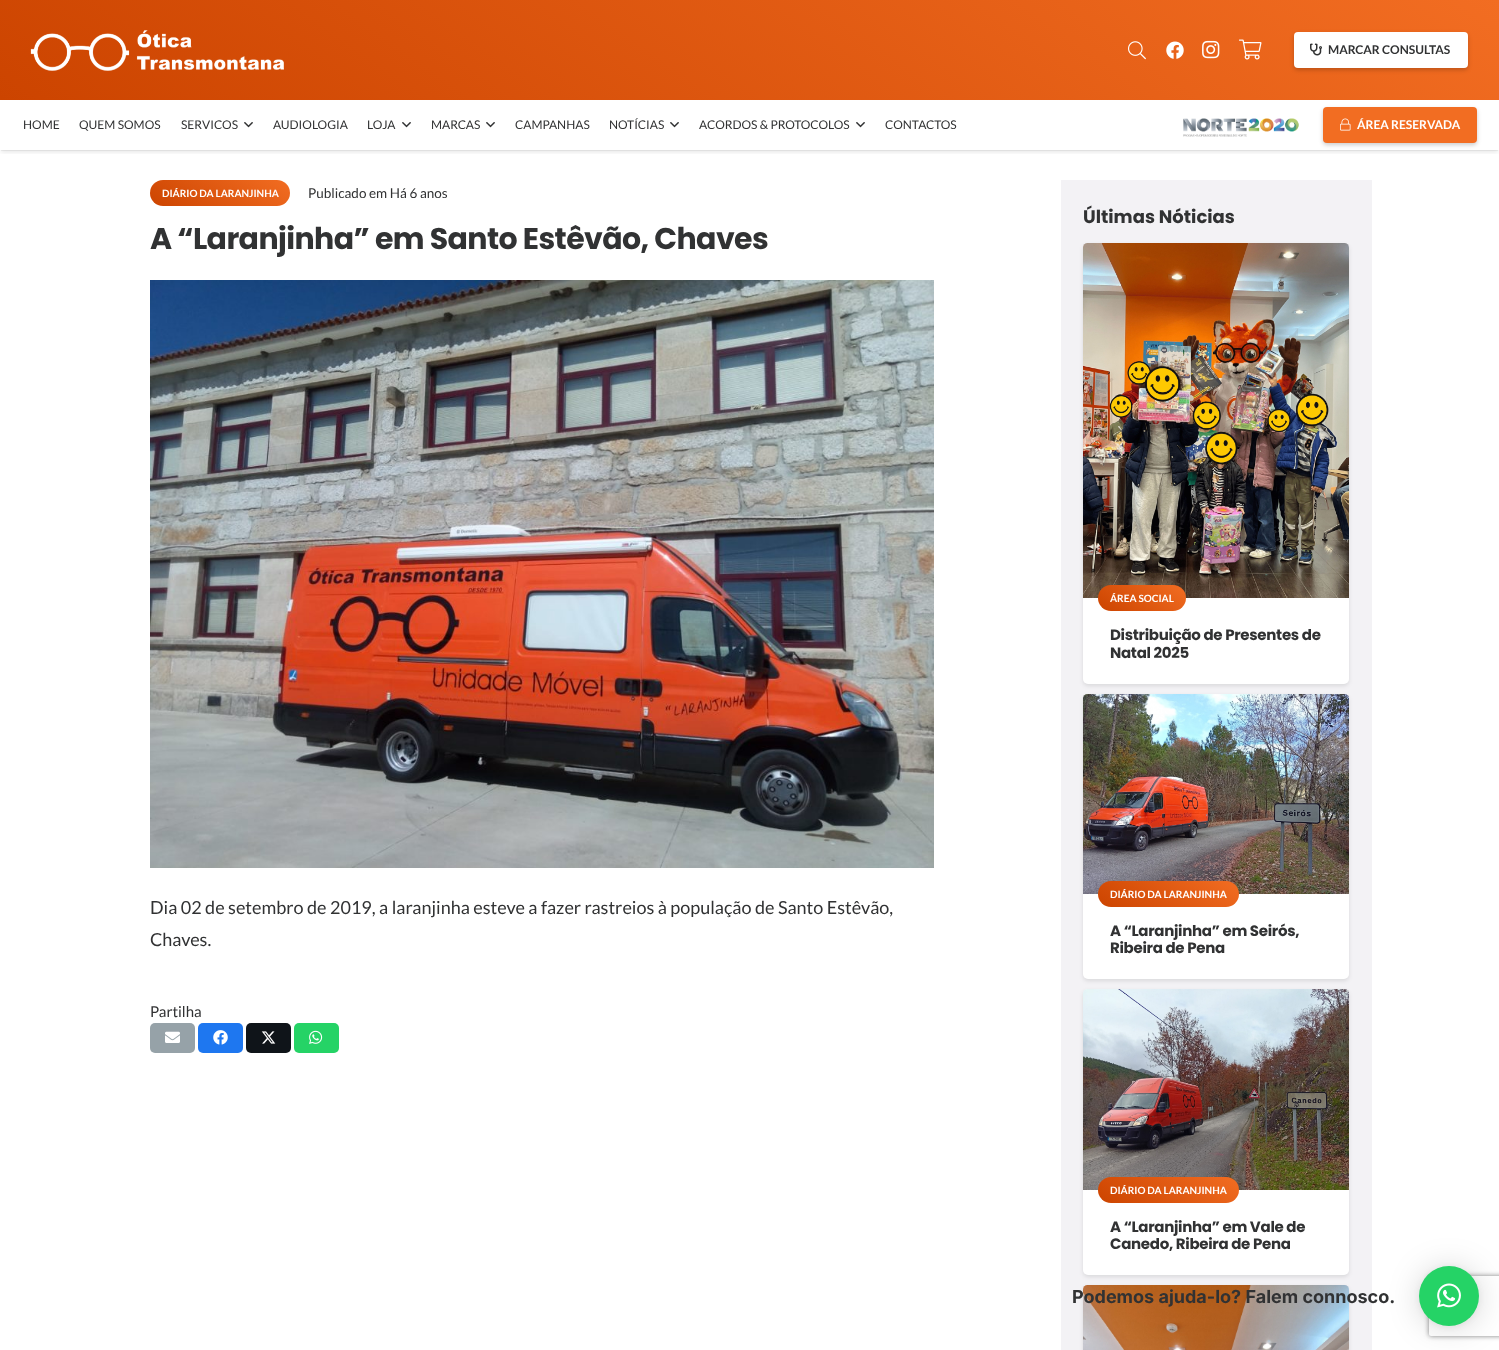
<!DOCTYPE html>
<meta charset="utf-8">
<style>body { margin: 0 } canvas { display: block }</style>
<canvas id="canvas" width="1499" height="1350"></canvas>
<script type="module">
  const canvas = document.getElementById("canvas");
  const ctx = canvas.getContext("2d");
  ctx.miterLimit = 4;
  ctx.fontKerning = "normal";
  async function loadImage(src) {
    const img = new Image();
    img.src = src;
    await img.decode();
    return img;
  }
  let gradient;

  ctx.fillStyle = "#ffffff";
  ctx.fillRect(0, 0, 1499, 1350);
  gradient = ctx.createLinearGradient(1020, -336, 479, 436);
  gradient.addColorStop(0, "#f26d22");
  gradient.addColorStop(1, "#cc4400");
  ctx.fillStyle = gradient;
  ctx.fillRect(0, 0, 1499, 100);
  ctx.drawImage(await loadImage("img1.png"), 30, 30, 254, 41);
  ctx.drawImage(await loadImage("img2.png"), 1128, 41, 18, 19);
  ctx.drawImage(await loadImage("img3.png"), 1166, 41, 18, 18);
  ctx.drawImage(await loadImage("img4.png"), 1202, 40, 18, 19);
  ctx.drawImage(await loadImage("img5.png"), 1239, 39, 23, 21);
  ctx.fillStyle = "rgba(0, 0, 0, 0.2)";
  ctx.filter = "blur(2px)";
  ctx.beginPath();
  ctx.roundRect(1294, 34, 174, 36, 4);
  ctx.fill();
  ctx.filter = "none";
  ctx.fillStyle = "#ffffff";
  ctx.beginPath();
  ctx.roundRect(1294, 32, 174, 36, 4);
  ctx.fill();
  ctx.drawImage(await loadImage("img6.png"), 1310, 43, 12, 13);
  ctx.font = "bold 12px Lato";
  ctx.fillStyle = "#313233";
  ctx.fillText("MARCAR CONSULTAS", 1328, 54);
  ctx.save();
  ctx.beginPath();
  ctx.rect(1, 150, 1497, 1);
  ctx.clip();
  ctx.fillStyle = "rgba(0, 0, 0, 0.05)";
  ctx.filter = "blur(0.5px)";
  ctx.beginPath();
  ctx.rect(1, 103, 1497, 48);
  ctx.fill();
  ctx.filter = "none";
  ctx.restore();
  ctx.save();
  ctx.beginPath();
  ctx.rect(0, 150, 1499, 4);
  ctx.clip();
  ctx.fillStyle = "rgba(0, 0, 0, 0.1)";
  ctx.filter = "blur(2.5px)";
  ctx.beginPath();
  ctx.rect(1, 104, 1497, 48);
  ctx.fill();
  ctx.filter = "none";
  ctx.restore();
  ctx.font = "12px Lato";
  ctx.fillText("HOME", 23, 129);
  ctx.fillText("QUEM SOMOS", 79, 129);
  ctx.fillText("SERVICOS", 181, 129);
  ctx.drawImage(await loadImage("img7.png"), 244, 122, 9, 6);
  ctx.fillText("AUDIOLOGIA", 273, 129);
  ctx.fillText("LOJA", 367, 129);
  ctx.drawImage(await loadImage("img7.png"), 402, 122, 9, 6);
  ctx.fillText("MARCAS", 431, 129);
  ctx.drawImage(await loadImage("img7.png"), 486, 122, 9, 6);
  ctx.fillText("CAMPANHAS", 515, 129);
  ctx.fillText("NOTÍCIAS", 609, 129);
  ctx.drawImage(await loadImage("img7.png"), 670, 122, 9, 6);
  ctx.fillText("ACORDOS & PROTOCOLOS", 699, 129);
  ctx.drawImage(await loadImage("img7.png"), 856, 122, 9, 6);
  ctx.fillText("CONTACTOS", 885, 129);
  ctx.drawImage(await loadImage("img8.png"), 1183, 118, 116, 19);
  ctx.fillStyle = "rgba(0, 0, 0, 0.2)";
  ctx.filter = "blur(2px)";
  ctx.beginPath();
  ctx.roundRect(1323, 109, 154, 36, 4);
  ctx.fill();
  ctx.filter = "none";
  ctx.fillStyle = "#f26d22";
  ctx.beginPath();
  ctx.roundRect(1323, 107, 154, 36, 4);
  ctx.fill();
  ctx.drawImage(await loadImage("img9.png"), 1340, 118, 11, 13);
  ctx.font = "bold 12px Lato";
  ctx.fillStyle = "#ffffff";
  ctx.fillText("ÁREA RESERVADA", 1357, 129);
  gradient = ctx.createLinearGradient(249, 151, 191, 235);
  gradient.addColorStop(0, "#f26d22");
  gradient.addColorStop(1, "#cc4400");
  ctx.fillStyle = gradient;
  ctx.beginPath();
  ctx.roundRect(150, 180, 140, 26, 13);
  ctx.fill();
  ctx.font = "bold 10px Lato";
  ctx.fillStyle = "#ffffff";
  ctx.fillText("DIÁRIO DA LARANJINHA", 162, 197);
  ctx.font = "13.5px Lato";
  ctx.fillStyle = "#313233";
  ctx.fillText("Publicado em Há 6 anos", 308, 198);
  ctx.letterSpacing = "-0.6px";
  ctx.font = "bold 30px Poppins";
  ctx.fillText("A “Laranjinha” em Santo Estêvão, Chaves", 150, 249);
  ctx.drawImage(await loadImage("img10.png"), 150, 280, 784, 588);
  ctx.letterSpacing = "0px";
  ctx.font = "18px Lato";
  ctx.fillText("Dia 02 de setembro de 2019, a laranjinha esteve a fazer rastreios à população de Santo Estêvão,", 150, 914);
  ctx.fillText("Chaves.", 150, 946);
  ctx.font = "15px Lato";
  ctx.fillText("Partilha", 150, 1017);
  ctx.fillStyle = "#96a2a8";
  ctx.beginPath();
  ctx.roundRect(150, 1023, 45, 30, 5);
  ctx.fill();
  ctx.drawImage(await loadImage("img11.png"), 165, 1031, 15, 12);
  ctx.fillStyle = "#1e77f0";
  ctx.beginPath();
  ctx.roundRect(198, 1023, 45, 30, 5);
  ctx.fill();
  ctx.drawImage(await loadImage("img12.png"), 213, 1030, 15, 15);
  ctx.fillStyle = "#0f1419";
  ctx.beginPath();
  ctx.roundRect(246, 1023, 45, 30, 5);
  ctx.fill();
  ctx.drawImage(await loadImage("img13.png"), 261, 1031, 15, 13);
  ctx.fillStyle = "#25d366";
  ctx.beginPath();
  ctx.roundRect(294, 1023, 45, 30, 5);
  ctx.fill();
  ctx.drawImage(await loadImage("img14.png"), 309, 1030, 14, 14);
  ctx.fillStyle = "#f3f2f5";
  ctx.fillRect(1061, 180, 311, 1170);
  ctx.font = "bold 18px Poppins";
  ctx.fillStyle = "#313233";
  ctx.fillText("Últimas Nóticias", 1083, 223);
  ctx.fillStyle = "rgba(0, 0, 0, 0.1)";
  ctx.filter = "blur(2px)";
  ctx.beginPath();
  ctx.roundRect(1083, 245, 266, 441, 5);
  ctx.fill();
  ctx.filter = "none";
  ctx.fillStyle = "#ffffff";
  ctx.beginPath();
  ctx.roundRect(1083, 243, 266, 441, 5);
  ctx.fill();
  ctx.drawImage(await loadImage("img15.png"), 1083, 243, 266, 355);
  gradient = ctx.createLinearGradient(1163, 569, 1121, 627);
  gradient.addColorStop(0, "#f26d22");
  gradient.addColorStop(1, "#cc4400");
  ctx.fillStyle = gradient;
  ctx.beginPath();
  ctx.roundRect(1098, 585, 88, 26, 13);
  ctx.fill();
  ctx.font = "bold 10px Lato";
  ctx.fillStyle = "#ffffff";
  ctx.fillText("ÁREA SOCIAL", 1110, 602);
  ctx.letterSpacing = "-0.3px";
  ctx.font = "bold 15px Poppins";
  ctx.fillStyle = "#313233";
  ctx.fillText("Distribuição de Presentes de", 1110, 640);
  ctx.fillText("Natal 2025", 1110, 658);
  ctx.fillStyle = "rgba(0, 0, 0, 0.1)";
  ctx.filter = "blur(2px)";
  ctx.beginPath();
  ctx.roundRect(1083, 696, 266, 285, 5);
  ctx.fill();
  ctx.filter = "none";
  ctx.fillStyle = "#ffffff";
  ctx.beginPath();
  ctx.roundRect(1083, 694, 266, 285, 5);
  ctx.fill();
  ctx.drawImage(await loadImage("img16.png"), 1083, 694, 266, 200);
  gradient = ctx.createLinearGradient(1198, 852, 1139, 936);
  gradient.addColorStop(0, "#f26d22");
  gradient.addColorStop(1, "#cc4400");
  ctx.fillStyle = gradient;
  ctx.beginPath();
  ctx.roundRect(1098, 881, 141, 26, 13);
  ctx.fill();
  ctx.letterSpacing = "0px";
  ctx.font = "bold 10px Lato";
  ctx.fillStyle = "#ffffff";
  ctx.fillText("DIÁRIO DA LARANJINHA", 1110, 898);
  ctx.letterSpacing = "-0.3px";
  ctx.font = "bold 15px Poppins";
  ctx.fillStyle = "#313233";
  ctx.fillText("A “Laranjinha” em Seirós,", 1110, 936);
  ctx.fillText("Ribeira de Pena", 1110, 953);
  ctx.fillStyle = "rgba(0, 0, 0, 0.1)";
  ctx.filter = "blur(2px)";
  ctx.beginPath();
  ctx.roundRect(1083, 991, 266, 286, 5);
  ctx.fill();
  ctx.filter = "none";
  ctx.fillStyle = "#ffffff";
  ctx.beginPath();
  ctx.roundRect(1083, 989, 266, 286, 5);
  ctx.fill();
  ctx.drawImage(await loadImage("img17.png"), 1083, 989, 266, 201);
  gradient = ctx.createLinearGradient(1198, 1148, 1139, 1232);
  gradient.addColorStop(0, "#f26d22");
  gradient.addColorStop(1, "#cc4400");
  ctx.fillStyle = gradient;
  ctx.beginPath();
  ctx.roundRect(1098, 1177, 141, 26, 13);
  ctx.fill();
  ctx.letterSpacing = "0px";
  ctx.font = "bold 10px Lato";
  ctx.fillStyle = "#ffffff";
  ctx.fillText("DIÁRIO DA LARANJINHA", 1110, 1194);
  ctx.letterSpacing = "-0.3px";
  ctx.font = "bold 15px Poppins";
  ctx.fillStyle = "#313233";
  ctx.fillText("A “Laranjinha” em Vale de", 1110, 1232);
  ctx.fillText("Canedo, Ribeira de Pena", 1110, 1249);
  ctx.fillStyle = "rgba(0, 0, 0, 0.1)";
  ctx.filter = "blur(2px)";
  ctx.beginPath();
  ctx.roundRect(1083, 1287, 266, 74, 5);
  ctx.fill();
  ctx.filter = "none";
  ctx.drawImage(await loadImage("img18.png"), 1083, 1285, 266, 65);
  ctx.fillStyle = "rgba(0, 0, 0, 0.16)";
  ctx.filter = "blur(16px)";
  ctx.beginPath();
  ctx.roundRect(1419, 1268, 60, 60, 30);
  ctx.fill();
  ctx.filter = "none";
  ctx.fillStyle = "rgba(0, 0, 0, 0.06)";
  ctx.filter = "blur(3px)";
  ctx.beginPath();
  ctx.roundRect(1419, 1267, 60, 60, 30);
  ctx.fill();
  ctx.filter = "none";
  ctx.save();
  ctx.beginPath();
  ctx.moveTo(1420, 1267);
  ctx.lineTo(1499, 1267);
  ctx.lineTo(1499, 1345);
  ctx.lineTo(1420, 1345);
  ctx.closePath();
  ctx.moveTo(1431, 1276);
  ctx.lineTo(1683, 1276);
  ctx.bezierCurveTo(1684, 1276, 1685, 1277, 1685, 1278);
  ctx.lineTo(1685, 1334);
  ctx.bezierCurveTo(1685, 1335, 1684, 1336, 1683, 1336);
  ctx.lineTo(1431, 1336);
  ctx.bezierCurveTo(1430, 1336, 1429, 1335, 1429, 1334);
  ctx.lineTo(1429, 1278);
  ctx.bezierCurveTo(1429, 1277, 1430, 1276, 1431, 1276);
  ctx.closePath();
  ctx.clip("evenodd");
  ctx.fillStyle = "#808080";
  ctx.filter = "blur(2.5px)";
  ctx.beginPath();
  ctx.roundRect(1429, 1276, 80, 60, 2);
  ctx.fill();
  ctx.filter = "none";
  ctx.restore();
  ctx.fillStyle = "#25d366";
  ctx.beginPath();
  ctx.arc(1449, 1296, 30, 0, Math.PI * 2);
  ctx.fill();
  ctx.letterSpacing = "0px";
  ctx.font = "bold 18px Inter";
  ctx.fillStyle = "#313233";
  ctx.fillText("Podemos ajuda-lo? Falem connosco.", 1072, 1303);
  ctx.drawImage(await loadImage("img19.png"), 1437, 1283, 24, 25);
</script>
